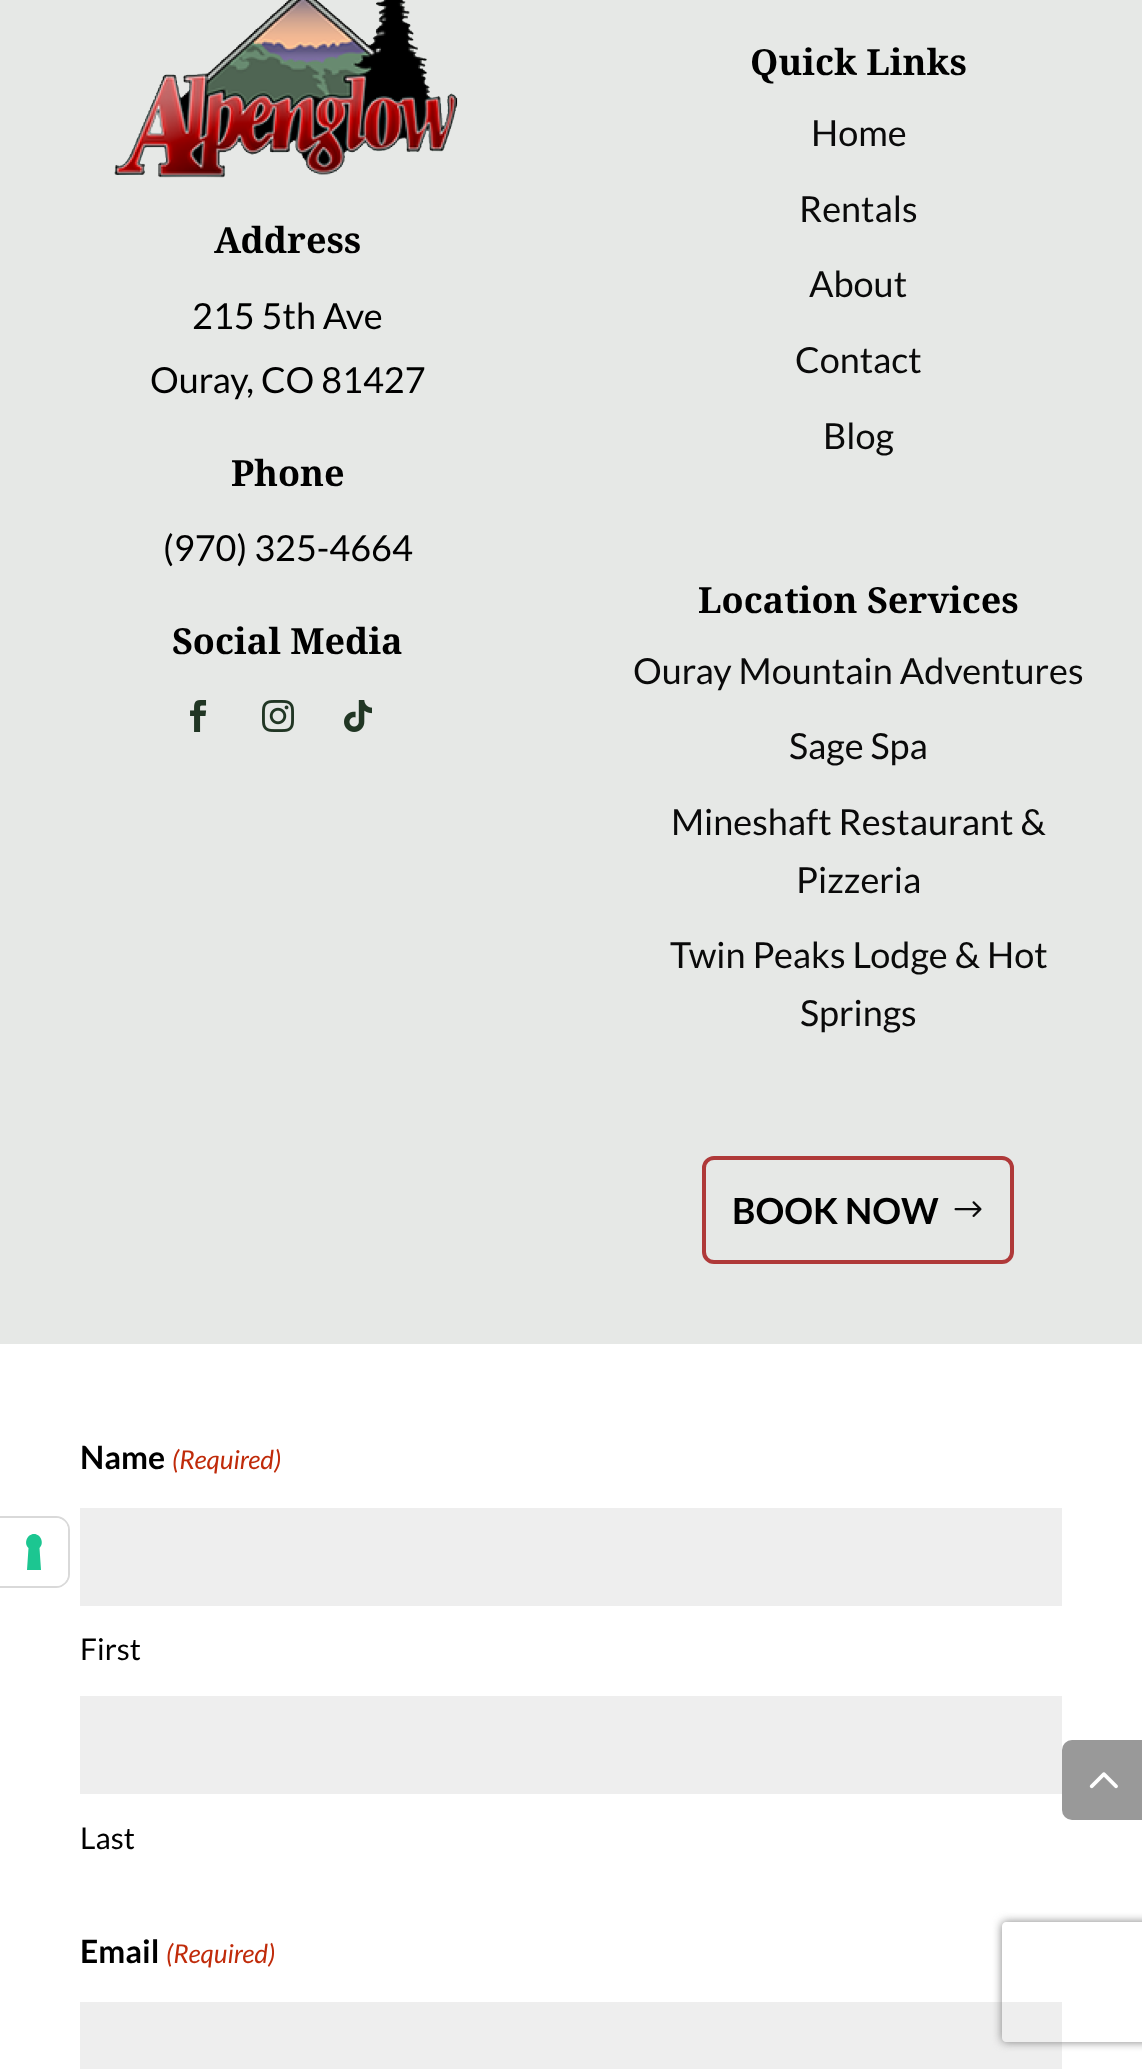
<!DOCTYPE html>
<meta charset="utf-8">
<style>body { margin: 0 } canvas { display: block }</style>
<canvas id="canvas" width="1142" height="2069"></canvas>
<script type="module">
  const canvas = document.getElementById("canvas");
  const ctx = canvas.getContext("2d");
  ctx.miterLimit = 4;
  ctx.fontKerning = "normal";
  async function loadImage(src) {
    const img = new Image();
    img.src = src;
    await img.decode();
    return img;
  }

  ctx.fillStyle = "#e6e8e6";
  ctx.fillRect(0, 0, 1142, 2069);
  ctx.fillStyle = "#ffffff";
  ctx.fillRect(0, 1344, 1142, 725);
  ctx.beginPath();
  ctx.moveTo(-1, 1517);
  ctx.lineTo(56, 1517);
  ctx.bezierCurveTo(63, 1517, 69, 1523, 69, 1530);
  ctx.lineTo(69, 1574);
  ctx.bezierCurveTo(69, 1581, 63, 1587, 56, 1587);
  ctx.lineTo(-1, 1587);
  ctx.closePath();
  ctx.strokeStyle = "#d9d9d9";
  ctx.lineWidth = 2;
  ctx.stroke();
  ctx.beginPath();
  ctx.roundRect(0, 1518, 68, 68, [0, 12, 12, 0]);
  ctx.fill();
  ctx.fillStyle = "#1cc691";
  ctx.beginPath();
  ctx.moveTo(34, 1534);
  ctx.bezierCurveTo(41, 1534, 44.5, 1543.5, 39.5, 1548);
  ctx.lineTo(41, 1570);
  ctx.lineTo(27, 1570);
  ctx.lineTo(28.5, 1548);
  ctx.bezierCurveTo(23.5, 1543.5, 27, 1534, 34, 1534);
  ctx.closePath();
  ctx.fill("evenodd");
  ctx.drawImage(await loadImage("img1.png"), 114, 0, 344, 178);
  ctx.font = "bold 36px Noto Serif";
  ctx.fillStyle = "#000000";
  ctx.fillText("Address", 214, 253);
  ctx.font = "36px Lato";
  ctx.fillText("215 5th Ave", 192, 329);
  ctx.fillText("Ouray, CO 81427", 150, 393);
  ctx.font = "bold 36px Noto Serif";
  ctx.fillText("Phone", 231, 486);
  ctx.font = "36px Lato";
  ctx.fillText("(970) 325-4664", 163, 561);
  ctx.font = "bold 36px Noto Serif";
  ctx.fillText("Social Media", 172, 654);
  ctx.drawImage(await loadImage("img2.png"), 190, 700, 17, 32);
  ctx.drawImage(await loadImage("img3.png"), 262, 700, 32, 32);
  ctx.drawImage(await loadImage("img4.png"), 344, 700, 28, 32);
  ctx.fillText("Quick Links", 750, 75);
  ctx.font = "36px Lato";
  ctx.fillStyle = "#0a0a0a";
  ctx.fillText("Home", 811, 146);
  ctx.fillText("Rentals", 799, 222);
  ctx.fillText("About", 809, 297);
  ctx.fillText("Contact", 795, 373);
  ctx.fillText("Blog", 823, 449);
  ctx.font = "bold 36px Noto Serif";
  ctx.fillStyle = "#000000";
  ctx.fillText("Location Services", 698, 613);
  ctx.font = "36px Lato";
  ctx.fillStyle = "#0a0a0a";
  ctx.fillText("Ouray Mountain Adventures", 633, 684);
  ctx.fillText("Sage Spa", 789, 759);
  ctx.fillText("Mineshaft Restaurant &", 671, 835);
  ctx.fillText("Pizzeria", 796, 893);
  ctx.fillText("Twin Peaks Lodge & Hot", 670, 968);
  ctx.fillText("Springs", 800, 1026);
  ctx.beginPath();
  ctx.roundRect(704, 1158, 308, 104, 10);
  ctx.strokeStyle = "#af3939";
  ctx.lineWidth = 4;
  ctx.stroke();
  ctx.font = "bold 36px Lato";
  ctx.fillStyle = "#000000";
  ctx.fillText("BOOK NOW", 732, 1224);
  ctx.drawImage(await loadImage("img5.png"), 954, 1201, 28, 16);
  ctx.font = "bold 32px Lato";
  ctx.fillText("Name", 80, 1469);
  ctx.font = "italic 26px Lato";
  ctx.fillStyle = "#c02b0a";
  ctx.fillText("(Required)", 172, 1469);
  ctx.fillStyle = "#eeeeee";
  ctx.fillRect(80, 1508, 982, 98);
  ctx.font = "30px Lato";
  ctx.fillStyle = "#000000";
  ctx.fillText("First", 80, 1660);
  ctx.fillStyle = "#eeeeee";
  ctx.fillRect(80, 1696, 982, 98);
  ctx.fillStyle = "#000000";
  ctx.fillText("Last", 80, 1849);
  ctx.font = "bold 32px Lato";
  ctx.fillText("Email", 80, 1963);
  ctx.font = "italic 26px Lato";
  ctx.fillStyle = "#c02b0a";
  ctx.fillText("(Required)", 166, 1963);
  ctx.fillStyle = "#eeeeee";
  ctx.fillRect(80, 2002, 982, 67);
  ctx.save();
  ctx.beginPath();
  ctx.moveTo(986, 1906);
  ctx.lineTo(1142, 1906);
  ctx.lineTo(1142, 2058);
  ctx.lineTo(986, 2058);
  ctx.closePath();
  ctx.moveTo(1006, 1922);
  ctx.lineTo(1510, 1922);
  ctx.bezierCurveTo(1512, 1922, 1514, 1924, 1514, 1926);
  ctx.lineTo(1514, 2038);
  ctx.bezierCurveTo(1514, 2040, 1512, 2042, 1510, 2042);
  ctx.lineTo(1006, 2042);
  ctx.bezierCurveTo(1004, 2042, 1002, 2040, 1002, 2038);
  ctx.lineTo(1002, 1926);
  ctx.bezierCurveTo(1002, 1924, 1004, 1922, 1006, 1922);
  ctx.closePath();
  ctx.clip("evenodd");
  ctx.fillStyle = "#808080";
  ctx.filter = "blur(5px)";
  ctx.beginPath();
  ctx.roundRect(1002, 1922, 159, 120, 4);
  ctx.fill();
  ctx.filter = "none";
  ctx.restore();
  ctx.fillStyle = "#999999";
  ctx.beginPath();
  ctx.roundRect(1062, 1740, 80, 80, [10, 0, 0, 10]);
  ctx.fill();
  ctx.drawImage(await loadImage("img6.png"), 1089, 1772, 29, 17);
</script>
